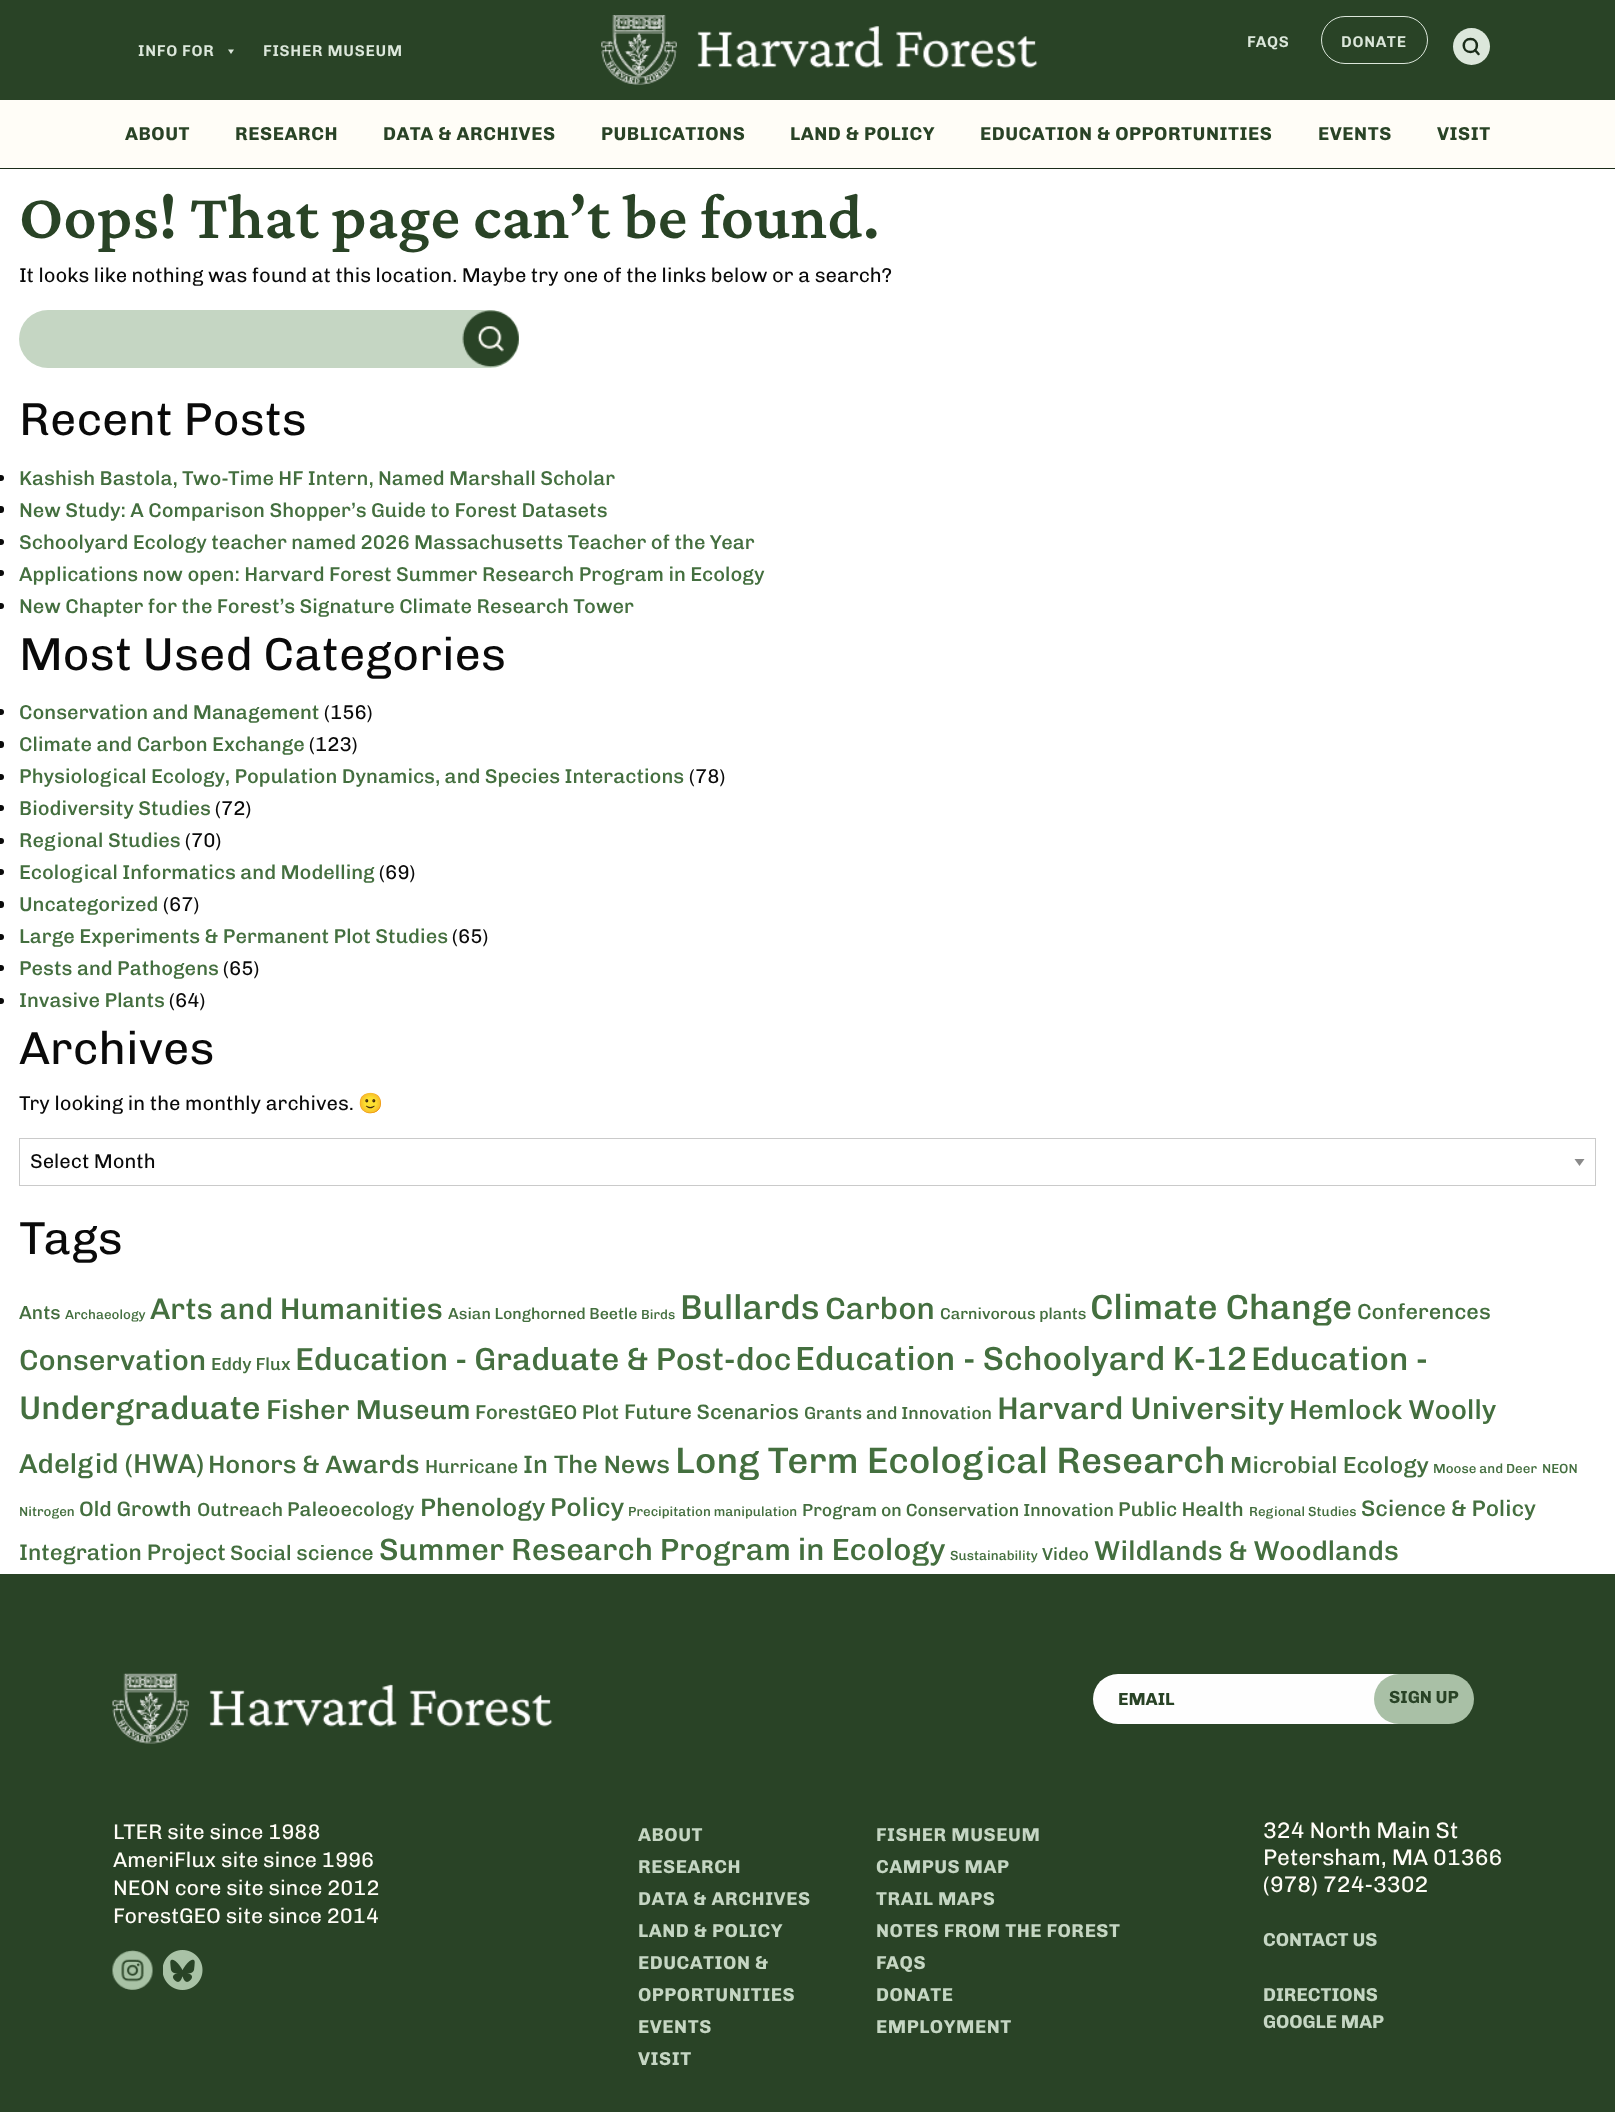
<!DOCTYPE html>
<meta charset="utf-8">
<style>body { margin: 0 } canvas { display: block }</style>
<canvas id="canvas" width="1615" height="2112"></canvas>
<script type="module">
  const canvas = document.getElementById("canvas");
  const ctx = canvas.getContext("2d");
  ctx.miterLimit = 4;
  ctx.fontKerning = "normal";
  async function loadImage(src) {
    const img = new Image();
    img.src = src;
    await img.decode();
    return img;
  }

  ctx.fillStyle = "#ffffff";
  ctx.fillRect(0, 0, 1615, 2112);
  ctx.fillStyle = "#fffdf7";
  ctx.fillRect(0, 100, 1615, 68);
  ctx.fillStyle = "#1b2c19";
  ctx.fillRect(0, 168, 1615, 1);
  ctx.fillStyle = "#294326";
  ctx.fillRect(0, 0, 1615, 100);
  ctx.letterSpacing = "0.75px";
  ctx.font = "600 15.6px Chivo";
  ctx.fillStyle = "#dce7db";
  ctx.fillText("INFO FOR", 138, 56);
  ctx.beginPath();
  ctx.moveTo(234, 49.5);
  ctx.lineTo(231, 54);
  ctx.lineTo(228, 49.5);
  ctx.closePath();
  ctx.fill();
  ctx.fillText("FISHER MUSEUM", 263, 56);
  ctx.drawImage(await loadImage("img1.png"), 601, 15, 437, 70);
  ctx.fillText("FAQS", 1247, 47);
  ctx.beginPath();
  ctx.roundRect(1321.5, 16.5, 106, 47, 23.5);
  ctx.strokeStyle = "#dce7db";
  ctx.stroke();
  ctx.fillText("DONATE", 1341, 47);
  ctx.beginPath();
  ctx.arc(1471.5, 46.5, 18.5, 0, Math.PI * 2);
  ctx.fill();
  ctx.beginPath();
  ctx.moveTo(1470.5, 52);
  ctx.bezierCurveTo(1479, 52, 1479, 39, 1470.5, 39);
  ctx.bezierCurveTo(1461.5, 39, 1461.5, 52, 1470.5, 52);
  ctx.closePath();
  ctx.moveTo(1478.5, 54);
  ctx.lineTo(1475, 50);
  ctx.strokeStyle = "#1b2c19";
  ctx.lineWidth = 2.5;
  ctx.lineCap = "round";
  ctx.lineJoin = "round";
  ctx.stroke();
  ctx.letterSpacing = "0.55px";
  ctx.font = "bold 18.75px Chivo";
  ctx.fillStyle = "#294326";
  ctx.fillText("ABOUT", 125, 140);
  ctx.fillText("RESEARCH", 235, 140);
  ctx.fillText("DATA & ARCHIVES", 383, 140);
  ctx.fillText("PUBLICATIONS", 601, 140);
  ctx.fillText("LAND & POLICY", 790, 140);
  ctx.fillText("EDUCATION & OPPORTUNITIES", 980, 140);
  ctx.fillText("EVENTS", 1318, 140);
  ctx.fillText("VISIT", 1437, 140);
  ctx.letterSpacing = "0.3px";
  ctx.font = "600 65px Crimson Pro";
  ctx.fillText("Oops! That page can’t be found.", 19, 238);
  ctx.letterSpacing = "0px";
  ctx.font = "20px Chivo";
  ctx.fillStyle = "#0a0a0a";
  ctx.fillText("It looks like nothing was found at this location. Maybe try one of the links below or a search?", 19, 282);
  ctx.fillStyle = "#c5d6c3";
  ctx.beginPath();
  ctx.roundRect(19, 310, 500, 58, 29);
  ctx.fill();
  ctx.drawImage(await loadImage("img2.png"), 462, 310, 57, 58);
  ctx.font = "46.25px Chivo";
  ctx.fillStyle = "#0a0a0a";
  ctx.fillText("Recent Posts", 19, 435);
  ctx.beginPath();
  ctx.arc(1, 478, 3, 0, Math.PI * 2);
  ctx.fill();
  ctx.font = "500 20px Chivo";
  ctx.fillStyle = "#446f3f";
  ctx.fillText("Kashish Bastola, Two-Time HF Intern, Named Marshall Scholar", 19, 485);
  ctx.fillStyle = "#0a0a0a";
  ctx.beginPath();
  ctx.roundRect(-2, 506, 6, 7, 3);
  ctx.fill();
  ctx.fillStyle = "#446f3f";
  ctx.fillText("New Study: A Comparison Shopper’s Guide to Forest Datasets", 19, 517);
  ctx.fillStyle = "#0a0a0a";
  ctx.beginPath();
  ctx.arc(1, 542, 3, 0, Math.PI * 2);
  ctx.fill();
  ctx.fillStyle = "#446f3f";
  ctx.fillText("Schoolyard Ecology teacher named 2026 Massachusetts Teacher of the Year", 19, 549);
  ctx.fillStyle = "#0a0a0a";
  ctx.beginPath();
  ctx.arc(1, 573, 3, 0, Math.PI * 2);
  ctx.fill();
  ctx.fillStyle = "#446f3f";
  ctx.fillText("Applications now open: Harvard Forest Summer Research Program in Ecology", 19, 581);
  ctx.fillStyle = "#0a0a0a";
  ctx.beginPath();
  ctx.arc(1, 606, 3, 0, Math.PI * 2);
  ctx.fill();
  ctx.fillStyle = "#446f3f";
  ctx.fillText("New Chapter for the Forest’s Signature Climate Research Tower", 19, 613);
  ctx.font = "46.25px Chivo";
  ctx.fillStyle = "#0a0a0a";
  ctx.fillText("Most Used Categories", 19, 670);
  ctx.beginPath();
  ctx.arc(1, 712, 3, 0, Math.PI * 2);
  ctx.fill();
  ctx.font = "500 20px Chivo";
  ctx.fillStyle = "#446f3f";
  ctx.fillText("Conservation and Management", 19, 719);
  ctx.font = "20px Chivo";
  ctx.fillStyle = "#0a0a0a";
  ctx.fillText("(156)", 324, 719);
  ctx.beginPath();
  ctx.roundRect(-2, 741, 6, 7, 3);
  ctx.fill();
  ctx.font = "500 20px Chivo";
  ctx.fillStyle = "#446f3f";
  ctx.fillText("Climate and Carbon Exchange", 19, 751);
  ctx.font = "20px Chivo";
  ctx.fillStyle = "#0a0a0a";
  ctx.fillText("(123)", 309, 751);
  ctx.beginPath();
  ctx.arc(1, 777, 3, 0, Math.PI * 2);
  ctx.fill();
  ctx.font = "500 20px Chivo";
  ctx.fillStyle = "#446f3f";
  ctx.fillText("Physiological Ecology, Population Dynamics, and Species Interactions", 19, 783);
  ctx.font = "20px Chivo";
  ctx.fillStyle = "#0a0a0a";
  ctx.fillText("(78)", 689, 783);
  ctx.beginPath();
  ctx.arc(1, 808, 3, 0, Math.PI * 2);
  ctx.fill();
  ctx.font = "500 20px Chivo";
  ctx.fillStyle = "#446f3f";
  ctx.fillText("Biodiversity Studies", 19, 815);
  ctx.font = "20px Chivo";
  ctx.fillStyle = "#0a0a0a";
  ctx.fillText("(72)", 215, 815);
  ctx.beginPath();
  ctx.arc(1, 841, 3, 0, Math.PI * 2);
  ctx.fill();
  ctx.font = "500 20px Chivo";
  ctx.fillStyle = "#446f3f";
  ctx.fillText("Regional Studies", 19, 847);
  ctx.font = "20px Chivo";
  ctx.fillStyle = "#0a0a0a";
  ctx.fillText("(70)", 185, 847);
  ctx.beginPath();
  ctx.arc(1, 872, 3, 0, Math.PI * 2);
  ctx.fill();
  ctx.font = "500 20px Chivo";
  ctx.fillStyle = "#446f3f";
  ctx.fillText("Ecological Informatics and Modelling", 19, 879);
  ctx.font = "20px Chivo";
  ctx.fillStyle = "#0a0a0a";
  ctx.fillText("(69)", 379, 879);
  ctx.beginPath();
  ctx.roundRect(-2, 901, 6, 7, 3);
  ctx.fill();
  ctx.font = "500 20px Chivo";
  ctx.fillStyle = "#446f3f";
  ctx.fillText("Uncategorized", 19, 911);
  ctx.font = "20px Chivo";
  ctx.fillStyle = "#0a0a0a";
  ctx.fillText("(67)", 163, 911);
  ctx.beginPath();
  ctx.arc(1, 937, 3, 0, Math.PI * 2);
  ctx.fill();
  ctx.font = "500 20px Chivo";
  ctx.fillStyle = "#446f3f";
  ctx.fillText("Large Experiments & Permanent Plot Studies", 19, 943);
  ctx.font = "20px Chivo";
  ctx.fillStyle = "#0a0a0a";
  ctx.fillText("(65)", 452, 943);
  ctx.beginPath();
  ctx.arc(1, 968, 3, 0, Math.PI * 2);
  ctx.fill();
  ctx.font = "500 20px Chivo";
  ctx.fillStyle = "#446f3f";
  ctx.fillText("Pests and Pathogens", 19, 975);
  ctx.font = "20px Chivo";
  ctx.fillStyle = "#0a0a0a";
  ctx.fillText("(65)", 223, 975);
  ctx.beginPath();
  ctx.arc(1, 1001, 3, 0, Math.PI * 2);
  ctx.fill();
  ctx.font = "500 20px Chivo";
  ctx.fillStyle = "#446f3f";
  ctx.fillText("Invasive Plants", 19, 1007);
  ctx.font = "20px Chivo";
  ctx.fillStyle = "#0a0a0a";
  ctx.fillText("(64)", 169, 1007);
  ctx.font = "46.25px Chivo";
  ctx.fillText("Archives", 19, 1064);
  ctx.font = "20px Chivo";
  ctx.fillText("Try looking in the monthly archives.", 19, 1110);
  ctx.font = "20px Noto Color Emoji";
  ctx.fillText("🙂", 358, 1110);
  ctx.fillStyle = "#8a8a8a";
  ctx.beginPath();
  ctx.moveTo(1574.5, 1159);
  ctx.lineTo(1584.5, 1159);
  ctx.lineTo(1579.5, 1166);
  ctx.closePath();
  ctx.fill();
  ctx.strokeStyle = "#cacaca";
  ctx.lineWidth = 1;
  ctx.lineJoin = "miter";
  ctx.strokeRect(19.5, 1138.5, 1576, 47);
  ctx.font = "20px Chivo";
  ctx.fillStyle = "#0a0a0a";
  ctx.fillText("Select Month", 30, 1168);
  ctx.font = "46.25px Chivo";
  ctx.fillText("Tags", 19, 1254);
  ctx.font = "500 19px Chivo";
  ctx.fillStyle = "#446f3f";
  ctx.fillText("Ants", 19, 1319);
  ctx.font = "500 13.3px Chivo";
  ctx.fillText("Archaeology", 65, 1319);
  ctx.font = "500 30px Chivo";
  ctx.fillText("Arts and Humanities", 150, 1319);
  ctx.font = "500 15.9px Chivo";
  ctx.fillText("Asian Longhorned Beetle", 448, 1319);
  ctx.font = "500 13.3px Chivo";
  ctx.fillText("Birds", 641, 1319);
  ctx.font = "500 34.5px Chivo";
  ctx.fillText("Bullards", 680, 1319);
  ctx.font = "500 31px Chivo";
  ctx.fillText("Carbon", 825, 1319);
  ctx.font = "500 15.9px Chivo";
  ctx.fillText("Carnivorous plants", 940, 1319);
  ctx.font = "500 35px Chivo";
  ctx.fillText("Climate Change", 1090, 1319);
  ctx.font = "500 21.75px Chivo";
  ctx.fillText("Conferences", 1357, 1319);
  ctx.font = "500 29px Chivo";
  ctx.fillText("Conservation", 19, 1370);
  ctx.font = "500 17.6px Chivo";
  ctx.fillText("Eddy Flux", 211, 1370);
  ctx.font = "500 31.9px Chivo";
  ctx.fillText("Education - Graduate & Post-doc", 295, 1370);
  ctx.font = "500 33.4px Chivo";
  ctx.fillText("Education - Schoolyard K-12", 795, 1370);
  ctx.font = "500 32.75px Chivo";
  ctx.fillText("Education -", 1251, 1370);
  ctx.fillText("Undergraduate", 19, 1419);
  ctx.font = "500 27.5px Chivo";
  ctx.fillText("Fisher Museum", 266, 1419);
  ctx.font = "500 20px Chivo";
  ctx.fillText("ForestGEO Plot", 475, 1419);
  ctx.font = "500 21px Chivo";
  ctx.fillText("Future Scenarios", 624, 1419);
  ctx.font = "500 17.6px Chivo";
  ctx.fillText("Grants and Innovation", 804, 1419);
  ctx.font = "500 31.5px Chivo";
  ctx.fillText("Harvard University", 997, 1419);
  ctx.font = "500 27.5px Chivo";
  ctx.fillText("Hemlock Woolly", 1289, 1419);
  ctx.fillText("Adelgid (HWA)", 19, 1473);
  ctx.font = "500 25.25px Chivo";
  ctx.fillText("Honors & Awards", 208, 1473);
  ctx.font = "500 19px Chivo";
  ctx.fillText("Hurricane", 425, 1473);
  ctx.font = "500 25.25px Chivo";
  ctx.fillText("In The News", 523, 1473);
  ctx.font = "500 36.7px Chivo";
  ctx.fillText("Long Term Ecological Research", 675, 1473);
  ctx.font = "500 23.25px Chivo";
  ctx.fillText("Microbial Ecology", 1230, 1473);
  ctx.font = "500 13.3px Chivo";
  ctx.fillText("Moose and Deer", 1433, 1473);
  ctx.fillText("NEON", 1542, 1473);
  ctx.fillText("Nitrogen", 19, 1516);
  ctx.font = "500 21px Chivo";
  ctx.fillText("Old Growth", 79, 1516);
  ctx.font = "500 19px Chivo";
  ctx.fillText("Outreach", 197, 1516);
  ctx.font = "500 20px Chivo";
  ctx.fillText("Paleoecology", 287, 1516);
  ctx.font = "500 25.25px Chivo";
  ctx.fillText("Phenology", 420, 1516);
  ctx.font = "500 26px Chivo";
  ctx.fillText("Policy", 550, 1516);
  ctx.font = "500 13.3px Chivo";
  ctx.fillText("Precipitation manipulation", 628, 1516);
  ctx.font = "500 17.6px Chivo";
  ctx.fillText("Program on Conservation Innovation", 802, 1516);
  ctx.font = "500 20px Chivo";
  ctx.fillText("Public Health", 1118, 1516);
  ctx.font = "500 13.3px Chivo";
  ctx.fillText("Regional Studies", 1249, 1516);
  ctx.font = "500 22.5px Chivo";
  ctx.fillText("Science & Policy", 1361, 1516);
  ctx.fillText("Integration Project", 19, 1560);
  ctx.font = "500 21px Chivo";
  ctx.fillText("Social science", 230, 1560);
  ctx.font = "500 30.75px Chivo";
  ctx.fillText("Summer Research Program in Ecology", 379, 1560);
  ctx.font = "500 13.3px Chivo";
  ctx.fillText("Sustainability", 950, 1560);
  ctx.font = "500 17.6px Chivo";
  ctx.fillText("Video", 1042, 1560);
  ctx.font = "500 27.25px Chivo";
  ctx.fillText("Wildlands & Woodlands", 1094, 1560);
  ctx.fillStyle = "#294326";
  ctx.fillRect(0, 1574, 1615, 538);
  ctx.drawImage(await loadImage("img3.png"), 112, 1673, 441, 71);
  ctx.fillStyle = "#fefefe";
  ctx.beginPath();
  ctx.roundRect(1093, 1674, 306, 50, [25, 0, 0, 25]);
  ctx.fill();
  ctx.font = "bold 17.5px Chivo";
  ctx.fillStyle = "#294326";
  ctx.fillText("EMAIL", 1118, 1705);
  ctx.fillStyle = "#a9c0a6";
  ctx.beginPath();
  ctx.roundRect(1374, 1674, 100, 50, 25);
  ctx.fill();
  ctx.fillStyle = "#294326";
  ctx.fillText("SIGN UP", 1389, 1703);
  ctx.font = "21.25px Chivo";
  ctx.fillStyle = "#fffdf7";
  ctx.fillText("LTER site since 1988", 113, 1839);
  ctx.fillText("AmeriFlux site since 1996", 113, 1867);
  ctx.fillText("NEON core site since 2012", 113, 1895);
  ctx.fillText("ForestGEO site since 2014", 113, 1923);
  ctx.drawImage(await loadImage("img4.png"), 112, 1950, 41, 40);
  ctx.drawImage(await loadImage("img5.png"), 163, 1950, 40, 40);
  ctx.letterSpacing = "0.55px";
  ctx.font = "bold 18.75px Chivo";
  ctx.fillStyle = "#c5d6c3";
  ctx.fillText("ABOUT", 638, 1841);
  ctx.fillText("RESEARCH", 638, 1873);
  ctx.fillText("DATA & ARCHIVES", 638, 1905);
  ctx.fillText("LAND & POLICY", 638, 1937);
  ctx.fillText("EDUCATION &", 638, 1969);
  ctx.fillText("OPPORTUNITIES", 638, 2001);
  ctx.fillText("EVENTS", 638, 2033);
  ctx.fillText("VISIT", 638, 2065);
  ctx.fillText("FISHER MUSEUM", 876, 1841);
  ctx.fillText("CAMPUS MAP", 876, 1873);
  ctx.fillText("TRAIL MAPS", 876, 1905);
  ctx.fillText("NOTES FROM THE FOREST", 876, 1937);
  ctx.fillText("FAQS", 876, 1969);
  ctx.fillText("DONATE", 876, 2001);
  ctx.fillText("EMPLOYMENT", 876, 2033);
  ctx.letterSpacing = "0px";
  ctx.font = "22.5px Chivo";
  ctx.fillStyle = "#fffdf7";
  ctx.fillText("324 North Main St", 1263, 1838);
  ctx.fillText("Petersham, MA 01366", 1263, 1865);
  ctx.fillText("(978) 724-3302", 1263, 1892);
  ctx.font = "bold 18.75px Chivo";
  ctx.fillStyle = "#c5d6c3";
  ctx.fillText("CONTACT US", 1263, 1946);
  ctx.fillText("DIRECTIONS", 1263, 2001);
  ctx.fillText("GOOGLE MAP", 1263, 2028);
</script>
